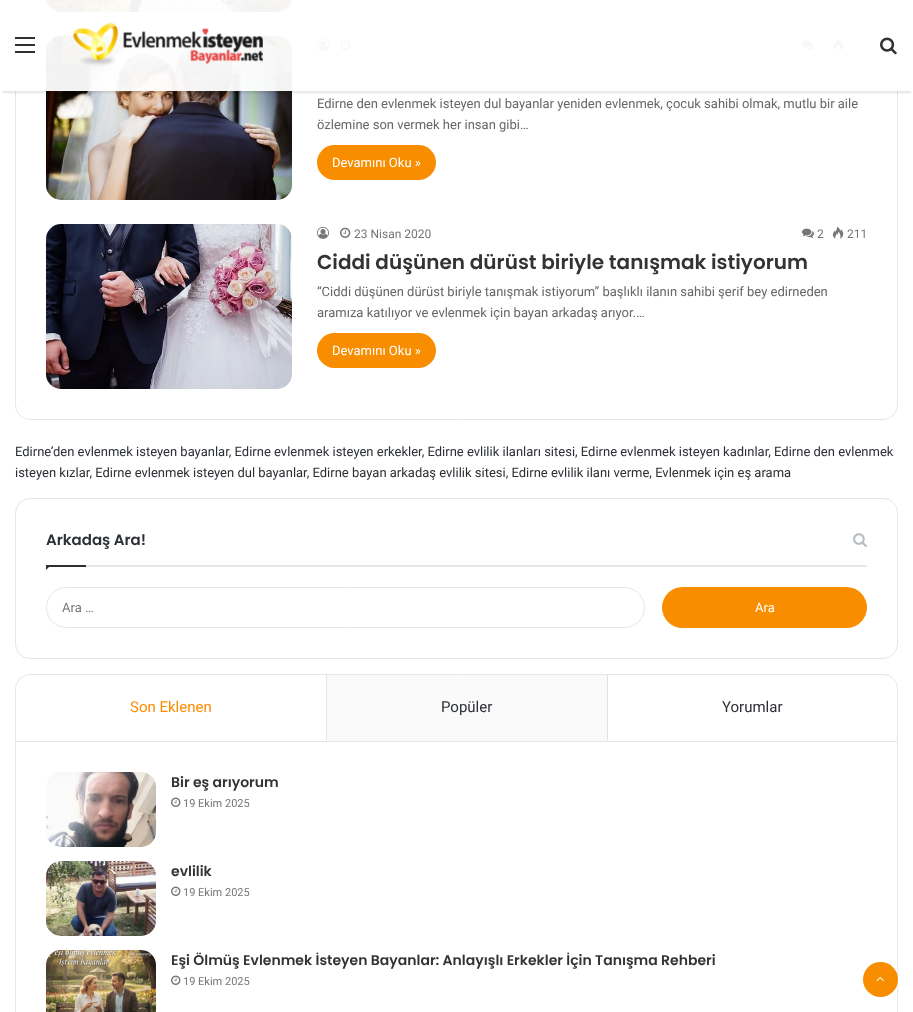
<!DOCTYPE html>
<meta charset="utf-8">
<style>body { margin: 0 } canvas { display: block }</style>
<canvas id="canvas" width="913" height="1012"></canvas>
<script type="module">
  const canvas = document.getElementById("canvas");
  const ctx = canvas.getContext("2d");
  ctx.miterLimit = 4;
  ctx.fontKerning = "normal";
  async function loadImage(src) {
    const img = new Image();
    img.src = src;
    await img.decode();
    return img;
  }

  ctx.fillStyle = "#ffffff";
  ctx.fillRect(0, 0, 913, 1012);
  ctx.beginPath();
  ctx.roundRect(15.5, -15.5, 882, 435, 14.5);
  ctx.strokeStyle = "#e6e6e6";
  ctx.stroke();
  ctx.drawImage(await loadImage("img3.png"), 46, 0, 246, 12);
  ctx.drawImage(await loadImage("img4.png"), 46, 36, 246, 164);
  ctx.drawImage(await loadImage("img5.png"), 317, 38, 12, 13);
  ctx.drawImage(await loadImage("img6.png"), 340, 39, 11, 11);
  ctx.drawImage(await loadImage("img7.png"), 802, 40, 12, 10);
  ctx.drawImage(await loadImage("img8.png"), 832, 38, 12, 13);
  ctx.save();
  ctx.beginPath();
  ctx.rect(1, 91, 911, 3);
  ctx.clip();
  ctx.fillStyle = "rgba(0, 0, 0, 0.1)";
  ctx.filter = "blur(1px)";
  ctx.beginPath();
  ctx.rect(2, 6, 909, 87);
  ctx.fill();
  ctx.filter = "none";
  ctx.restore();
  ctx.fillStyle = "rgba(255, 255, 255, 0.95)";
  ctx.fillRect(15, 0, 883, 91);
  ctx.fillStyle = "#2c2f34";
  ctx.fillRect(15, 44, 20, 2);
  ctx.fillRect(15, 37, 20, 2);
  ctx.fillRect(15, 51, 20, 2);
  ctx.drawImage(await loadImage("img1.png"), 72, 22, 191, 44);
  ctx.drawImage(await loadImage("img2.png"), 880, 37, 17, 18);
  ctx.font = "13px Roboto";
  ctx.fillStyle = "#666666";
  ctx.fillText("Edirne den evlenmek isteyen dul bayanlar yeniden evlenmek, çocuk sahibi olmak, mutlu bir aile", 317, 108);
  ctx.fillText("özlemine son vermek her insan gibi…", 317, 129);
  ctx.fillStyle = "#f98d00";
  ctx.beginPath();
  ctx.roundRect(317, 145, 119, 35, 17.5);
  ctx.fill();
  ctx.fillStyle = "#ffffff";
  ctx.fillText("Devamını Oku »", 332, 167);
  ctx.drawImage(await loadImage("img9.png"), 46, 224, 246, 165);
  ctx.drawImage(await loadImage("img5.png"), 317, 226, 12, 13);
  ctx.drawImage(await loadImage("img6.png"), 340, 227, 11, 11);
  ctx.font = "12px Roboto";
  ctx.fillStyle = "#767676";
  ctx.fillText("23 Nisan 2020", 354, 238);
  ctx.drawImage(await loadImage("img7.png"), 802, 228, 12, 10);
  ctx.fillText("2", 817, 238);
  ctx.drawImage(await loadImage("img8.png"), 832, 226, 12, 13);
  ctx.fillText("211", 847, 238);
  ctx.font = "600 20px Poppins";
  ctx.fillStyle = "#333333";
  ctx.fillText("Ciddi düşünen dürüst biriyle tanışmak istiyorum", 317, 269);
  ctx.font = "13px Roboto";
  ctx.fillStyle = "#666666";
  ctx.fillText("“Ciddi düşünen dürüst biriyle tanışmak istiyorum” başlıklı ilanın sahibi şerif bey edirneden", 317, 296);
  ctx.fillText("aramıza katılıyor ve evlenmek için bayan arkadaş arıyor.…", 317, 317);
  ctx.fillStyle = "#f98d00";
  ctx.beginPath();
  ctx.roundRect(317, 333, 119, 35, 17.5);
  ctx.fill();
  ctx.fillStyle = "#ffffff";
  ctx.fillText("Devamını Oku »", 332, 355);
  ctx.fillStyle = "#2c2f34";
  ctx.fillText("Edirne’den evlenmek isteyen bayanlar, Edirne evlenmek isteyen erkekler, Edirne evlilik ilanları sitesi, Edirne evlenmek isteyen kadınlar, Edirne den evlenmek", 15, 456);
  ctx.fillText("isteyen kızlar, Edirne evlenmek isteyen dul bayanlar, Edirne bayan arkadaş evlilik sitesi, Edirne evlilik ilanı verme, Evlenmek için eş arama", 15, 477);
  ctx.beginPath();
  ctx.roundRect(15.5, 498.5, 882, 160, 14.5);
  ctx.stroke();
  ctx.fillStyle = "#e6e6e6";
  ctx.fillRect(86, 565, 781, 2);
  ctx.font = "600 15px Poppins";
  ctx.fillStyle = "#2c2f34";
  ctx.fillText("Arkadaş Ara!", 46, 545);
  ctx.drawImage(await loadImage("img10.png"), 853, 533, 14, 14);
  ctx.beginPath();
  ctx.moveTo(46, 565);
  ctx.lineTo(51, 565);
  ctx.lineTo(46, 570);
  ctx.closePath();
  ctx.fill();
  ctx.fillRect(46, 565, 40, 2);
  ctx.beginPath();
  ctx.roundRect(46.5, 587.5, 598, 40, 20);
  ctx.stroke();
  ctx.font = "13px Roboto";
  ctx.fillStyle = "#767676";
  ctx.fillText("Ara …", 62, 612);
  ctx.fillStyle = "#f98d00";
  ctx.beginPath();
  ctx.roundRect(662, 587, 205, 41, 20.5);
  ctx.fill();
  ctx.fillStyle = "#ffffff";
  ctx.fillText("Ara", 755, 612);
  ctx.beginPath();
  ctx.roundRect(15.5, 674.5, 882, 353, 14.5);
  ctx.stroke();
  ctx.fillStyle = "#e6e6e6";
  ctx.fillRect(16, 741, 881, 1);
  ctx.fillStyle = "#ffffff";
  ctx.beginPath();
  ctx.roundRect(16, 675, 311, 66, [15, 0, 0, 0]);
  ctx.fill();
  ctx.fillStyle = "#e6e6e6";
  ctx.beginPath();
  ctx.moveTo(327, 675);
  ctx.lineTo(326, 675);
  ctx.lineTo(326, 740);
  ctx.lineTo(327, 741);
  ctx.closePath();
  ctx.fill();
  ctx.font = "15px Roboto";
  ctx.fillStyle = "#f98d00";
  ctx.fillText("Son Eklenen", 130, 712);
  ctx.fillStyle = "#fafafa";
  ctx.fillRect(327, 675, 281, 66);
  ctx.fillStyle = "#e1e1e1";
  ctx.beginPath();
  ctx.moveTo(608, 675);
  ctx.lineTo(608, 741);
  ctx.lineTo(607, 740);
  ctx.lineTo(607, 675);
  ctx.closePath();
  ctx.fill();
  ctx.fillStyle = "#2c2f34";
  ctx.fillText("Popüler", 441, 712);
  ctx.fillText("Yorumlar", 722, 712);
  ctx.drawImage(await loadImage("img11.png"), 46, 772, 110, 75);
  ctx.font = "600 14px Poppins";
  ctx.fillStyle = "#333333";
  ctx.fillText("Bir eş arıyorum", 171, 787);
  ctx.drawImage(await loadImage("img12.png"), 171, 797, 10, 10);
  ctx.font = "11px Roboto";
  ctx.fillStyle = "#767676";
  ctx.fillText("19 Ekim 2025", 183, 807);
  ctx.drawImage(await loadImage("img13.png"), 46, 861, 110, 75);
  ctx.font = "600 14px Poppins";
  ctx.fillStyle = "#333333";
  ctx.fillText("evlilik", 171, 876);
  ctx.drawImage(await loadImage("img12.png"), 171, 886, 10, 10);
  ctx.font = "11px Roboto";
  ctx.fillStyle = "#767676";
  ctx.fillText("19 Ekim 2025", 183, 896);
  ctx.drawImage(await loadImage("img14.png"), 46, 950, 110, 62);
  ctx.font = "600 14px Poppins";
  ctx.fillStyle = "#333333";
  ctx.fillText("Eşi Ölmüş Evlenmek İsteyen Bayanlar: Anlayışlı Erkekler İçin Tanışma Rehberi", 171, 965);
  ctx.drawImage(await loadImage("img12.png"), 171, 975, 10, 10);
  ctx.font = "11px Roboto";
  ctx.fillStyle = "#767676";
  ctx.fillText("19 Ekim 2025", 183, 985);
  ctx.fillStyle = "#f98d00";
  ctx.beginPath();
  ctx.arc(880.5, 979.5, 17.5, 0, Math.PI * 2);
  ctx.fill();
  ctx.drawImage(await loadImage("img15.png"), 876, 976, 8, 6);
</script>
